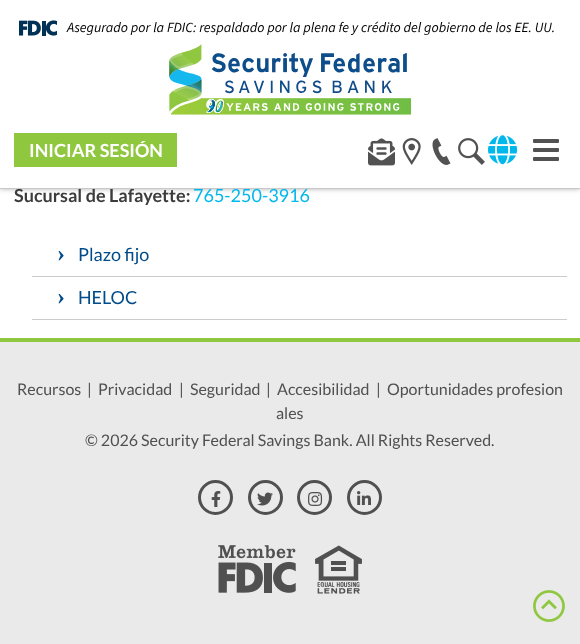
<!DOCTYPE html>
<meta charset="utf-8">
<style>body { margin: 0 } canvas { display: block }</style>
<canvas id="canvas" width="580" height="644"></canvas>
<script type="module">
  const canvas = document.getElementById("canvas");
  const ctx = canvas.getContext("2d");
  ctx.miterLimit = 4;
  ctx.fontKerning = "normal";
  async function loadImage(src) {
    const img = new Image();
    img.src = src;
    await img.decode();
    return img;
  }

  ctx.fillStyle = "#ffffff";
  ctx.fillRect(0, 0, 580, 644);
  ctx.fillStyle = "rgba(0, 0, 0, 0.3)";
  ctx.filter = "blur(2.5px)";
  ctx.beginPath();
  ctx.rect(0, 0, 580, 189);
  ctx.fill();
  ctx.filter = "none";
  ctx.fillStyle = "#ffffff";
  ctx.fillRect(0, 0, 580, 188);
  ctx.font = "bold 18px Lato";
  ctx.fillStyle = "#3c3c3c";
  ctx.fillText("Sucursal de Lafayette:", 14, 202);
  ctx.font = "18px Lato";
  ctx.fillStyle = "#00b8ec";
  ctx.fillText("765-250-3916", 193, 202);
  ctx.fillStyle = "#c9c8c8";
  ctx.fillRect(0, 188, 580, 1);
  ctx.drawImage(await loadImage("img1.png"), 19, 20, 38, 16);
  ctx.font = "italic 14px 'Source Sans 3'";
  ctx.fillStyle = "#000000";
  ctx.fillText("Asegurado por la FDIC: respaldado por la plena fe y crédito del gobierno de los EE. UU.", 67, 32);
  ctx.drawImage(await loadImage("img2.png"), 169, 44, 243, 71);
  ctx.fillStyle = "#8fc73e";
  ctx.fillRect(14, 133, 163, 34);
  ctx.font = "bold 18px Lato";
  ctx.fillStyle = "#ffffff";
  ctx.fillText("INICIAR SESIÓN", 29, 157);
  ctx.drawImage(await loadImage("img3.png"), 368, 138, 27, 28);
  ctx.drawImage(await loadImage("img4.png"), 402, 138, 19, 27);
  ctx.drawImage(await loadImage("img5.png"), 432, 138, 19, 27);
  ctx.drawImage(await loadImage("img6.png"), 458, 138, 27, 27);
  ctx.drawImage(await loadImage("img7.png"), 488, 135, 30, 30);
  ctx.fillStyle = "#525252";
  ctx.beginPath();
  ctx.roundRect(533, 139, 26, 4, 1);
  ctx.fill();
  ctx.beginPath();
  ctx.roundRect(533, 148, 26, 4, 1);
  ctx.fill();
  ctx.beginPath();
  ctx.roundRect(533, 157, 26, 4, 1);
  ctx.fill();
  ctx.fillStyle = "#cccccc";
  ctx.fillRect(32, 276, 535, 1);
  ctx.font = "bold 24px Liberation Serif";
  ctx.fillStyle = "#004b89";
  ctx.fillText("›", 57, 261);
  ctx.font = "18px Lato";
  ctx.fillText("Plazo fijo", 78, 261);
  ctx.fillStyle = "#cccccc";
  ctx.fillRect(32, 319, 535, 1);
  ctx.font = "bold 24px Liberation Serif";
  ctx.fillStyle = "#004b89";
  ctx.fillText("›", 57, 304);
  ctx.font = "18px Lato";
  ctx.fillText("HELOC", 78, 304);
  ctx.fillStyle = "#eaeaea";
  ctx.fillRect(0, 342, 580, 302);
  ctx.fillStyle = "#8fc73e";
  ctx.fillRect(0, 338, 580, 4);
  ctx.font = "16px Lato";
  ctx.fillStyle = "#505050";
  ctx.fillText("Recursos", 17, 395);
  ctx.fillText("|", 87, 395);
  ctx.fillText("Privacidad", 98, 395);
  ctx.fillText("|", 179, 395);
  ctx.fillText("Seguridad", 190, 395);
  ctx.fillText("|", 266, 395);
  ctx.fillText("Accesibilidad", 277, 395);
  ctx.fillText("|", 376, 395);
  ctx.fillText("Oportunidades profesion", 387, 395);
  ctx.fillText("ales", 276, 419);
  ctx.fillText("© 2026 Security Federal Savings Bank. All Rights Reserved.", 85, 446);
  ctx.beginPath();
  ctx.arc(215.5, 497.5, 16, 0, Math.PI * 2);
  ctx.strokeStyle = "#505050";
  ctx.lineWidth = 3;
  ctx.stroke();
  ctx.drawImage(await loadImage("img8.png"), 211, 491, 10, 16);
  ctx.beginPath();
  ctx.arc(265.5, 497.5, 16, 0, Math.PI * 2);
  ctx.stroke();
  ctx.drawImage(await loadImage("img9.png"), 257, 492, 16, 14);
  ctx.beginPath();
  ctx.arc(314.5, 497.5, 16, 0, Math.PI * 2);
  ctx.stroke();
  ctx.drawImage(await loadImage("img10.png"), 308, 492, 15, 14);
  ctx.beginPath();
  ctx.arc(364.5, 497.5, 16, 0, Math.PI * 2);
  ctx.stroke();
  ctx.drawImage(await loadImage("img11.png"), 357, 491, 14, 14);
  ctx.drawImage(await loadImage("img12.png"), 218, 545, 78, 48);
  ctx.drawImage(await loadImage("img13.png"), 315, 545, 47, 49);
  ctx.drawImage(await loadImage("img14.png"), 533, 590, 32, 32);
</script>
